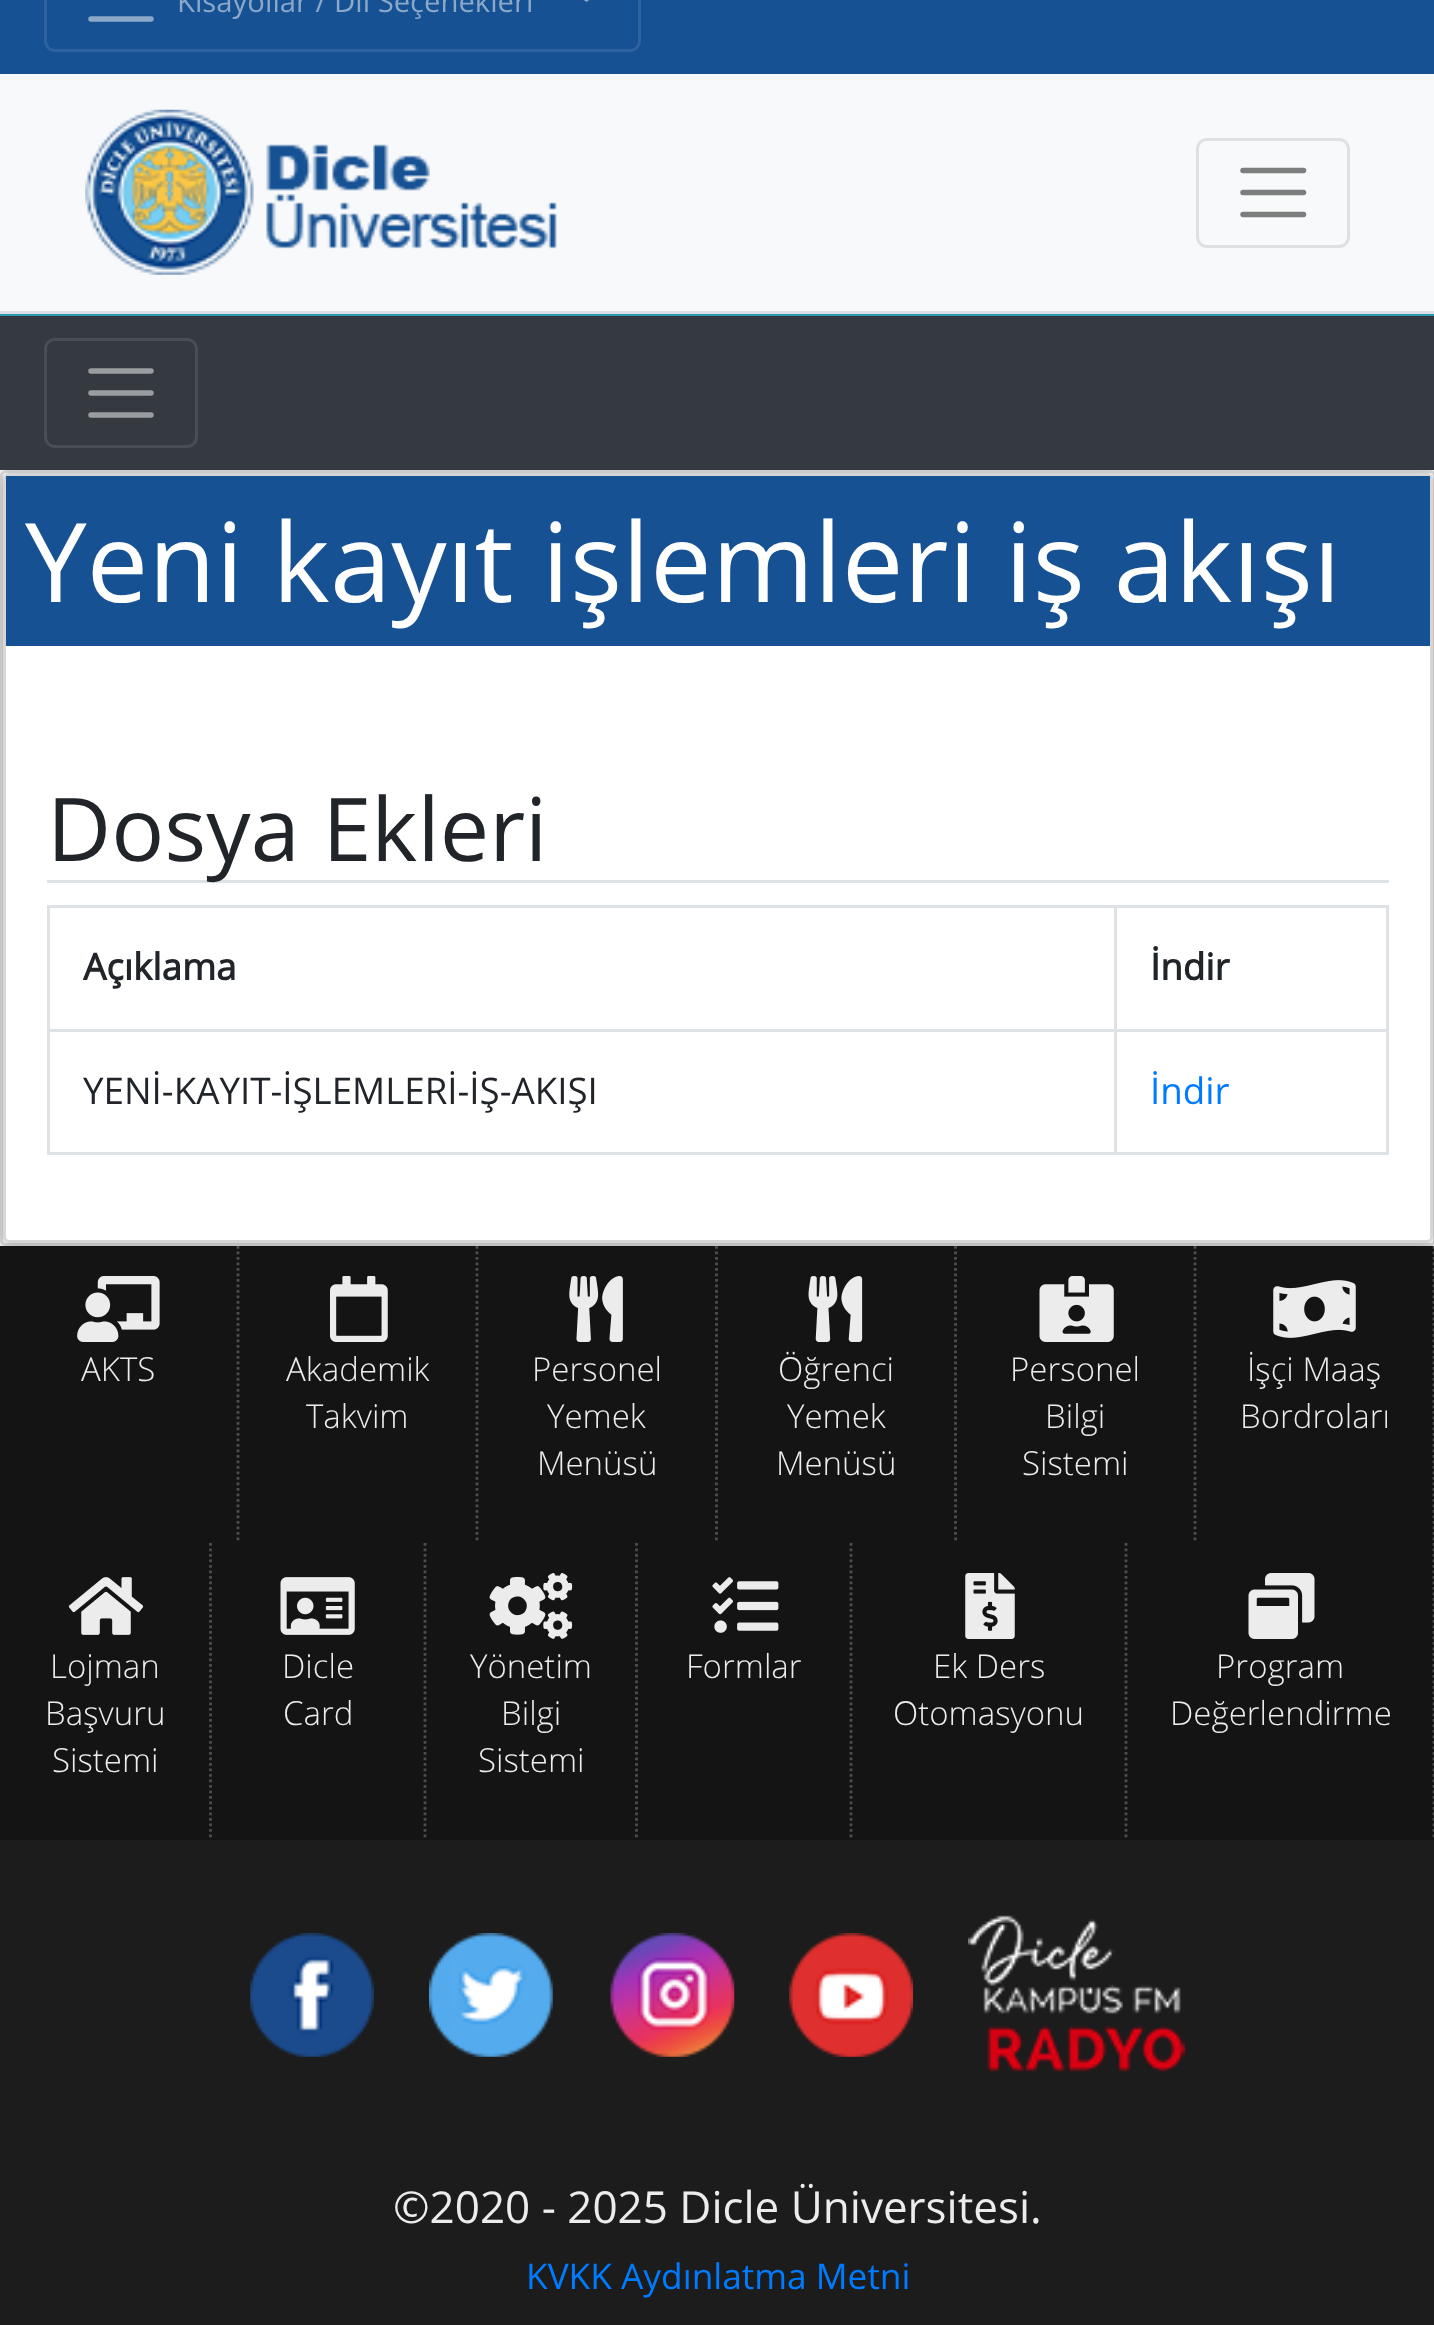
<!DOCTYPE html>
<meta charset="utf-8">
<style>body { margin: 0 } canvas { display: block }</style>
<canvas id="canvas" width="1434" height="2325"></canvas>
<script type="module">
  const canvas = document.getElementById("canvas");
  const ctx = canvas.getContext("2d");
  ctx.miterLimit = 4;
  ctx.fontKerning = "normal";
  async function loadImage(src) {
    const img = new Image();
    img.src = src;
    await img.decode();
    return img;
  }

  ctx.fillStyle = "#1c1c1c";
  ctx.fillRect(0, 0, 1434, 2325);
  ctx.fillStyle = "#f8f9fa";
  ctx.fillRect(0, 74, 1434, 237);
  ctx.fillStyle = "#2d99b1";
  ctx.fillRect(0, 314, 1434, 2);
  ctx.fillStyle = "#165193";
  ctx.fillRect(0, 0, 1434, 74);
  ctx.beginPath();
  ctx.roundRect(45.5, -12.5, 594, 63, 9.5);
  ctx.strokeStyle = "#2d629e";
  ctx.lineWidth = 3;
  ctx.stroke();
  ctx.font = "29.25px Open Sans";
  ctx.fillStyle = "#8ba8c9";
  ctx.fillText("Kısayollar / Dil Seçenekleri", 177, 12);
  ctx.drawImage(await loadImage("img1.png"), 584, 0, 5, 2);
  ctx.beginPath();
  ctx.moveTo(91, -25);
  ctx.lineTo(151, -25);
  ctx.moveTo(91, -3);
  ctx.lineTo(151, -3);
  ctx.moveTo(91, 19);
  ctx.lineTo(151, 19);
  ctx.strokeStyle = "#8ba8c9";
  ctx.lineWidth = 5.5;
  ctx.lineCap = "round";
  ctx.stroke();
  ctx.fillStyle = "#dee2e6";
  ctx.fillRect(0, 311, 1434, 3);
  ctx.drawImage(await loadImage("img2.png"), 85, 109, 472, 166);
  ctx.beginPath();
  ctx.roundRect(1197.5, 139.5, 151, 107, 9.5);
  ctx.strokeStyle = "#dfe0e1";
  ctx.lineWidth = 3;
  ctx.stroke();
  ctx.beginPath();
  ctx.moveTo(1243, 170.5);
  ctx.lineTo(1303.5, 170.5);
  ctx.moveTo(1243, 192.5);
  ctx.lineTo(1303.5, 192.5);
  ctx.moveTo(1243, 214.5);
  ctx.lineTo(1303.5, 214.5);
  ctx.strokeStyle = "#7c7d7d";
  ctx.lineWidth = 5.5;
  ctx.stroke();
  ctx.fillStyle = "#ffffff";
  ctx.fillRect(0, 470, 1434, 776);
  ctx.fillStyle = "rgba(0, 0, 0, 0.18)";
  ctx.filter = "blur(8px)";
  ctx.beginPath();
  ctx.roundRect(0, 473, 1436, 776, 6);
  ctx.fill();
  ctx.filter = "none";
  ctx.fillStyle = "#ffffff";
  ctx.beginPath();
  ctx.roundRect(1.5, 471.5, 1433, 773, 4.5);
  ctx.fill();
  ctx.strokeStyle = "#d6d6d6";
  ctx.lineWidth = 3;
  ctx.stroke();
  ctx.fillStyle = "rgba(0, 0, 0, 0.18)";
  ctx.filter = "blur(8px)";
  ctx.beginPath();
  ctx.roundRect(3, 476, 1430, 770, 6);
  ctx.fill();
  ctx.filter = "none";
  ctx.fillStyle = "#343a40";
  ctx.fillRect(0, 316, 1434, 154);
  ctx.beginPath();
  ctx.roundRect(45.5, 339.5, 151, 107, 9.5);
  ctx.strokeStyle = "#484e53";
  ctx.stroke();
  ctx.beginPath();
  ctx.moveTo(91, 371);
  ctx.lineTo(151, 371);
  ctx.moveTo(91, 393);
  ctx.lineTo(151, 393);
  ctx.moveTo(91, 415);
  ctx.lineTo(151, 415);
  ctx.strokeStyle = "#9a9da0";
  ctx.lineWidth = 5.5;
  ctx.stroke();
  ctx.fillStyle = "#ffffff";
  ctx.beginPath();
  ctx.roundRect(4.5, 474.5, 1427, 767, 4.5);
  ctx.fill();
  ctx.strokeStyle = "#d6d6d6";
  ctx.lineWidth = 3;
  ctx.stroke();
  ctx.fillStyle = "#165193";
  ctx.fillRect(6, 476, 1424, 170);
  ctx.font = "110px Open Sans";
  ctx.fillStyle = "#ffffff";
  ctx.fillText("Yeni kayıt işlemleri iş akışı", 25, 602);
  ctx.fillStyle = "#dee2e6";
  ctx.fillRect(47, 880, 1342, 3);
  ctx.font = "88px Open Sans";
  ctx.fillStyle = "#212529";
  ctx.fillText("Dosya Ekleri", 47, 861);
  ctx.fillStyle = "#dee2e6";
  ctx.fillRect(47, 905, 1342, 3);
  ctx.fillRect(1386, 905, 3, 250);
  ctx.fillRect(47, 1152, 1342, 3);
  ctx.fillRect(47, 905, 3, 250);
  ctx.font = "bold 36.7px Open Sans";
  ctx.fillStyle = "#212529";
  ctx.fillText("Açıklama", 83, 980);
  ctx.fillStyle = "#dee2e6";
  ctx.fillRect(1114, 1029, 275, 3);
  ctx.fillRect(1114, 1029, 3, 126);
  ctx.fillRect(47, 1029, 1070, 3);
  ctx.fillRect(1114, 905, 3, 126);
  ctx.fillStyle = "#212529";
  ctx.fillText("İndir", 1150, 980);
  ctx.font = "36.7px Open Sans";
  ctx.fillText("YENİ-KAYIT-İŞLEMLERİ-İŞ-AKIŞI", 83, 1104);
  ctx.fillStyle = "#007bff";
  ctx.fillText("İndir", 1150, 1104);
  ctx.fillStyle = "#151414";
  ctx.fillRect(0, 1246, 1434, 594);
  ctx.beginPath();
  ctx.moveTo(238, 1246);
  ctx.lineTo(238, 1543);
  ctx.strokeStyle = "#4d4d4d";
  ctx.lineWidth = 2.8;
  ctx.lineCap = "butt";
  ctx.setLineDash([2.75, 2.75]);
  ctx.stroke();
  ctx.drawImage(await loadImage("img3.png"), 77, 1276, 83, 66);
  ctx.font = "300 33px Open Sans";
  ctx.fillStyle = "#ececec";
  ctx.fillText("AKTS", 81, 1381);
  ctx.beginPath();
  ctx.moveTo(477, 1246);
  ctx.lineTo(477, 1543);
  ctx.stroke();
  ctx.drawImage(await loadImage("img4.png"), 330, 1276, 58, 66);
  ctx.fillText("Akademik", 286, 1381);
  ctx.fillText("Takvim", 306, 1428);
  ctx.beginPath();
  ctx.moveTo(716.5, 1246);
  ctx.lineTo(716.5, 1543);
  ctx.stroke();
  ctx.drawImage(await loadImage("img5.png"), 569, 1276, 54, 66);
  ctx.fillText("Personel", 532, 1381);
  ctx.fillText("Yemek", 547, 1428);
  ctx.fillText("Menüsü", 537, 1475);
  ctx.beginPath();
  ctx.moveTo(955.5, 1246);
  ctx.lineTo(955.5, 1543);
  ctx.stroke();
  ctx.drawImage(await loadImage("img6.png"), 808, 1276, 55, 66);
  ctx.fillText("Öğrenci", 778, 1381);
  ctx.fillText("Yemek", 787, 1428);
  ctx.fillText("Menüsü", 776, 1475);
  ctx.beginPath();
  ctx.moveTo(1195, 1246);
  ctx.lineTo(1195, 1543);
  ctx.stroke();
  ctx.drawImage(await loadImage("img7.png"), 1039, 1276, 75, 66);
  ctx.fillText("Personel", 1010, 1381);
  ctx.fillText("Bilgi", 1045, 1428);
  ctx.fillText("Sistemi", 1022, 1475);
  ctx.beginPath();
  ctx.moveTo(1434, 1246);
  ctx.lineTo(1434, 1543);
  ctx.stroke();
  ctx.drawImage(await loadImage("img8.png"), 1273, 1280, 83, 58);
  ctx.fillText("İşçi Maaş", 1247, 1381);
  ctx.fillText("Bordroları", 1240, 1428);
  ctx.beginPath();
  ctx.moveTo(210.5, 1543);
  ctx.lineTo(210.5, 1840);
  ctx.stroke();
  ctx.drawImage(await loadImage("img9.png"), 68, 1577, 76, 58);
  ctx.fillText("Lojman", 50, 1678);
  ctx.fillText("Başvuru", 45, 1725);
  ctx.fillText("Sistemi", 52, 1772);
  ctx.beginPath();
  ctx.moveTo(425, 1543);
  ctx.lineTo(425, 1840);
  ctx.stroke();
  ctx.drawImage(await loadImage("img10.png"), 280, 1577, 75, 58);
  ctx.fillText("Dicle", 282, 1678);
  ctx.fillText("Card", 283, 1725);
  ctx.beginPath();
  ctx.moveTo(636.5, 1543);
  ctx.lineTo(636.5, 1840);
  ctx.stroke();
  ctx.drawImage(await loadImage("img11.png"), 489, 1573, 84, 66);
  ctx.fillText("Yönetim", 470, 1678);
  ctx.fillText("Bilgi", 501, 1725);
  ctx.fillText("Sistemi", 478, 1772);
  ctx.beginPath();
  ctx.moveTo(851, 1543);
  ctx.lineTo(851, 1840);
  ctx.stroke();
  ctx.drawImage(await loadImage("img12.png"), 712, 1577, 67, 56);
  ctx.fillText("Formlar", 686, 1678);
  ctx.beginPath();
  ctx.moveTo(1126, 1543);
  ctx.lineTo(1126, 1840);
  ctx.stroke();
  ctx.drawImage(await loadImage("img13.png"), 965, 1573, 50, 66);
  ctx.fillText("Ek Ders", 933, 1678);
  ctx.fillText("Otomasyonu", 893, 1725);
  ctx.beginPath();
  ctx.moveTo(1434, 1543);
  ctx.lineTo(1434, 1840);
  ctx.stroke();
  ctx.drawImage(await loadImage("img14.png"), 1248, 1573, 67, 66);
  ctx.fillText("Program", 1216, 1678);
  ctx.fillText("Değerlendirme", 1170, 1725);
  ctx.drawImage(await loadImage("img15.png"), 250, 1933, 124, 124);
  ctx.drawImage(await loadImage("img16.png"), 429, 1933, 124, 124);
  ctx.drawImage(await loadImage("img17.png"), 610, 1933, 125, 124);
  ctx.drawImage(await loadImage("img18.png"), 789, 1933, 124, 124);
  ctx.drawImage(await loadImage("img19.png"), 968, 1915, 218, 157);
  ctx.font = "44px Open Sans";
  ctx.fillText("©2020 - 2025 Dicle Üniversitesi.", 393, 2223);
  ctx.font = "35.25px Open Sans";
  ctx.fillStyle = "#007bff";
  ctx.fillText("KVKK Aydınlatma Metni", 526, 2289);
</script>
